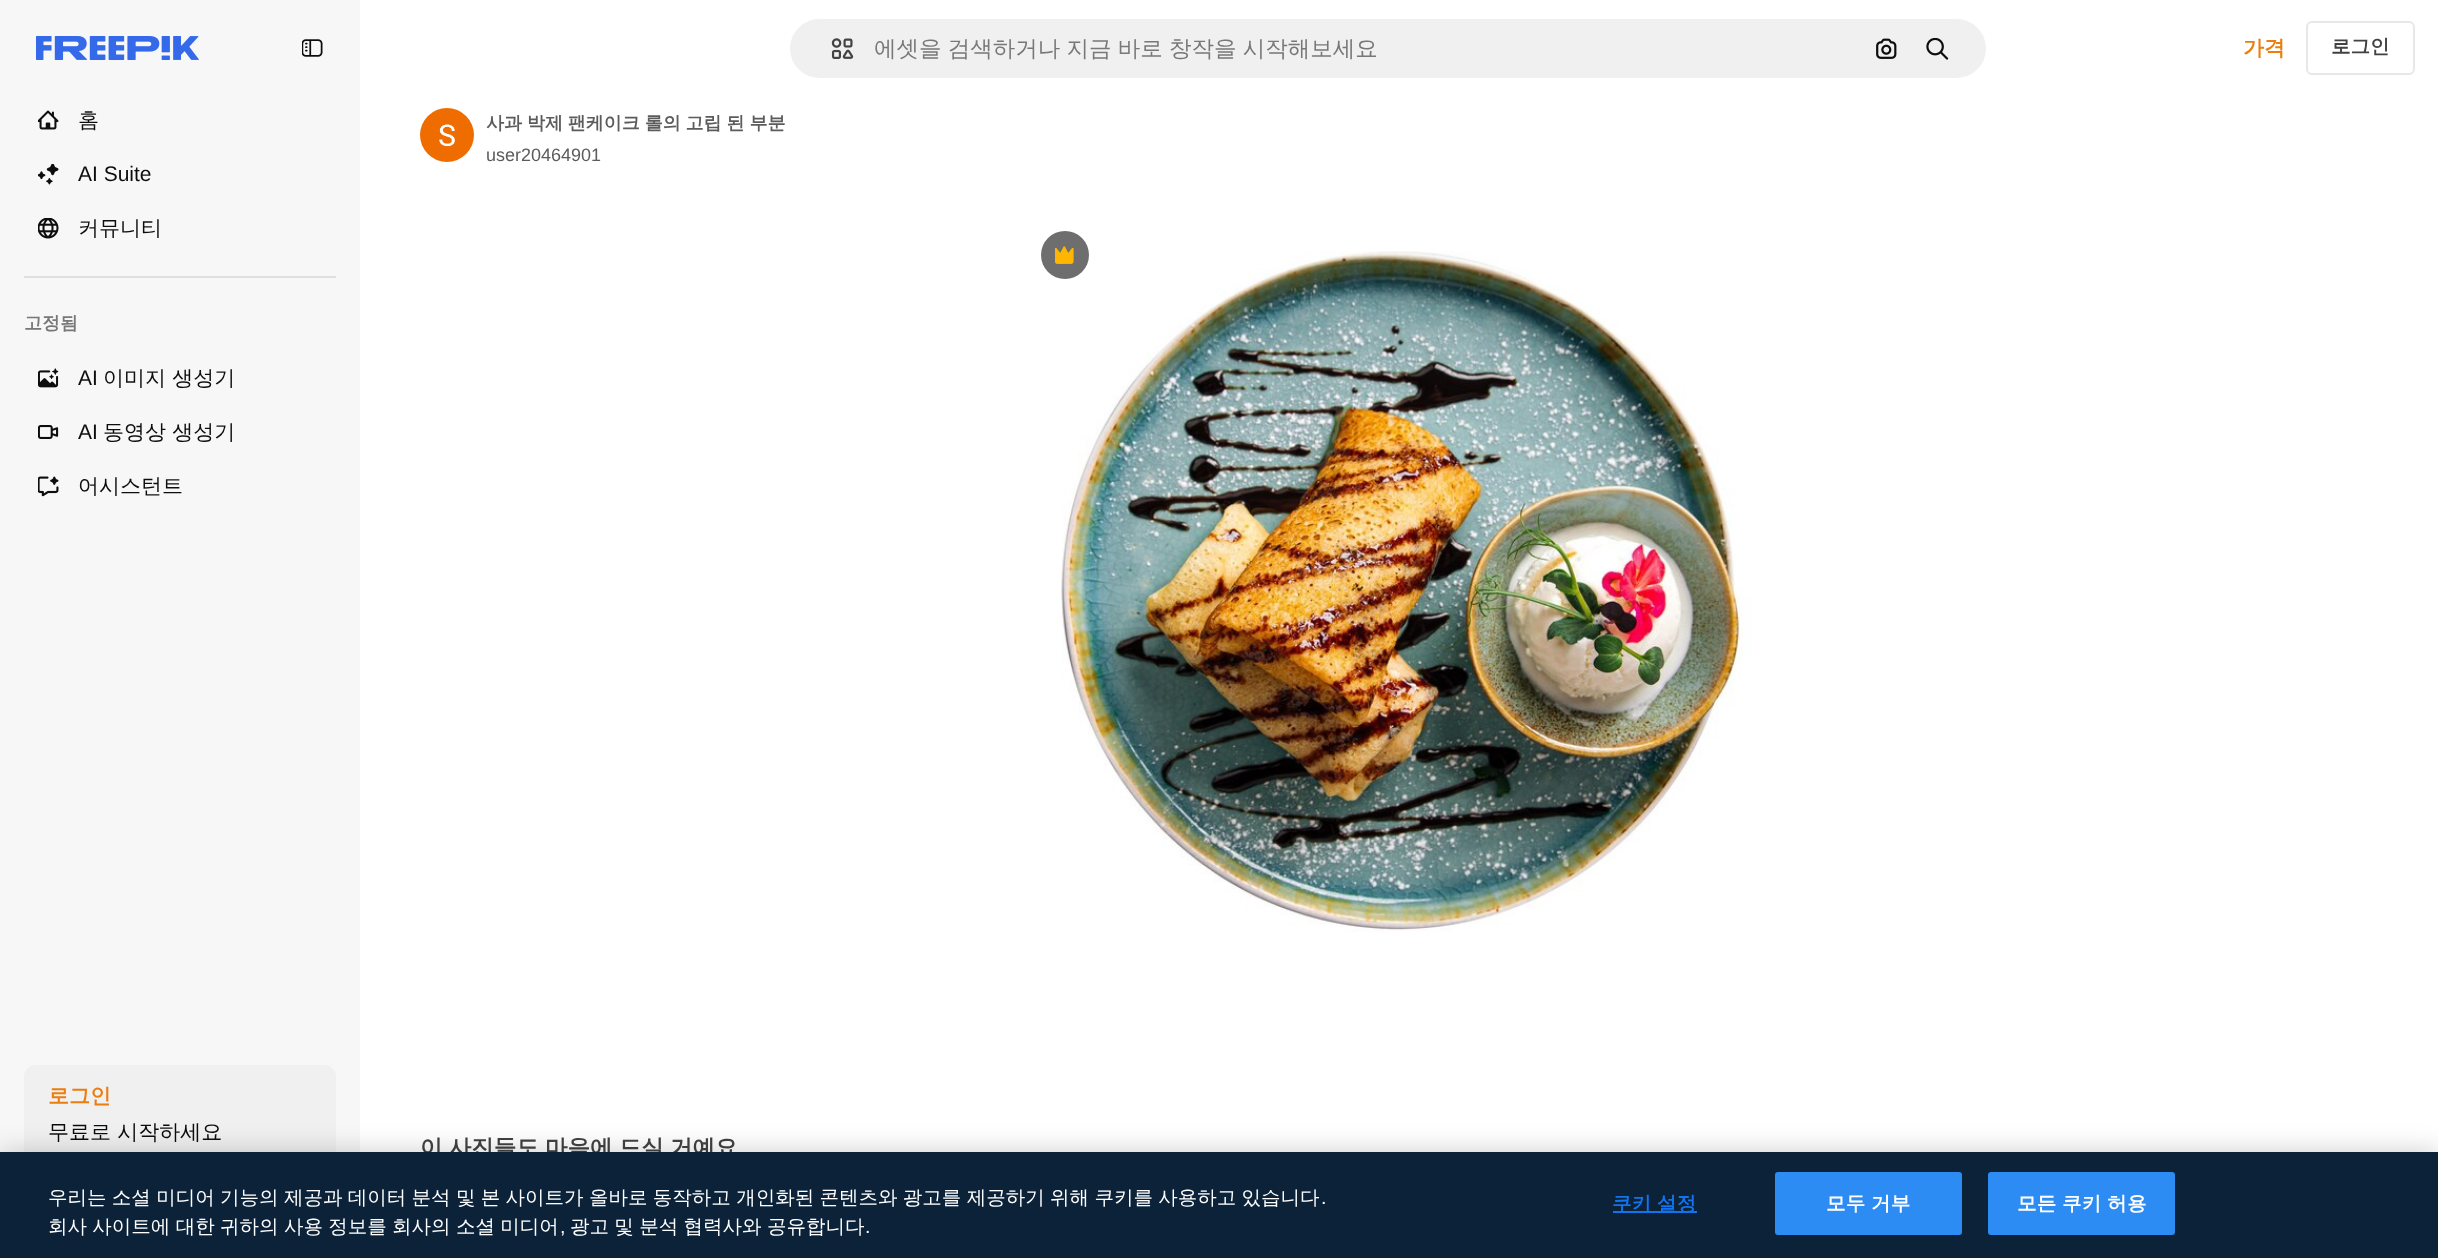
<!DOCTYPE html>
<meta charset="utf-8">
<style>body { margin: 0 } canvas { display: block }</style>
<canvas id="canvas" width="2438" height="1258"></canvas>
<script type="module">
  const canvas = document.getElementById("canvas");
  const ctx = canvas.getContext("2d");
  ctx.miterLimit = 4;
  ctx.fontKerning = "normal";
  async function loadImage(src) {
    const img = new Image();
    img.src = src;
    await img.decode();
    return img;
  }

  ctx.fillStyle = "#ffffff";
  ctx.fillRect(0, 0, 2438, 1258);
  ctx.fillStyle = "#f7f7f7";
  ctx.fillRect(0, 0, 360, 1152);
  ctx.drawImage(await loadImage("img1.png"), 36, 36, 163, 24);
  ctx.drawImage(await loadImage("img2.png"), 302, 39, 21, 18);
  ctx.drawImage(await loadImage("img3.png"), 38, 110, 21, 20);
  ctx.font = "500 21px WenQuanYi Zen Hei";
  ctx.fillStyle = "#0d0d0d";
  ctx.fillText("홈", 78, 127);
  ctx.drawImage(await loadImage("img4.png"), 38, 164, 21, 21);
  ctx.font = "21px Liberation Sans";
  ctx.fillText("AI Suite", 78, 181);
  ctx.drawImage(await loadImage("img5.png"), 38, 218, 21, 21);
  ctx.font = "500 21px WenQuanYi Zen Hei";
  ctx.fillText("커뮤니티", 78, 235);
  ctx.fillStyle = "#e0e0e0";
  ctx.fillRect(24, 276, 312, 2);
  ctx.font = "bold 18px WenQuanYi Zen Hei";
  ctx.fillStyle = "#787878";
  ctx.fillText("고정됨", 24, 329);
  ctx.drawImage(await loadImage("img6.png"), 38, 368, 21, 20);
  ctx.font = "21px Liberation Sans";
  ctx.fillStyle = "#0d0d0d";
  ctx.fillText("AI", 78, 385);
  ctx.font = "500 21px WenQuanYi Zen Hei";
  ctx.fillText("이미지 생성기", 103, 385);
  ctx.drawImage(await loadImage("img7.png"), 38, 425, 21, 14);
  ctx.font = "21px Liberation Sans";
  ctx.fillText("AI", 78, 439);
  ctx.font = "500 21px WenQuanYi Zen Hei";
  ctx.fillText("동영상 생성기", 103, 439);
  ctx.drawImage(await loadImage("img8.png"), 38, 476, 21, 21);
  ctx.fillText("어시스턴트", 78, 493);
  ctx.fillStyle = "#f0f0f0";
  ctx.beginPath();
  ctx.roundRect(24, 1065, 312, 98, 12);
  ctx.fill();
  ctx.font = "bold 21px WenQuanYi Zen Hei";
  ctx.fillStyle = "#ea7e11";
  ctx.fillText("로그인", 48, 1103);
  ctx.font = "500 21px WenQuanYi Zen Hei";
  ctx.fillStyle = "#0d0d0d";
  ctx.fillText("무료로 시작하세요", 48, 1139);
  ctx.fillStyle = "#f0f0f0";
  ctx.beginPath();
  ctx.roundRect(789, 18, 1198, 61, 30.5);
  ctx.fill();
  ctx.strokeStyle = "#ffffff";
  ctx.lineWidth = 2;
  ctx.stroke();
  ctx.drawImage(await loadImage("img9.png"), 831, 38, 23, 21);
  ctx.wordSpacing = "-0.5px";
  ctx.font = "500 22.5px WenQuanYi Zen Hei";
  ctx.fillStyle = "#787878";
  ctx.fillText("에셋을 검색하거나 지금 바로 창작을 시작해보세요", 874, 56);
  ctx.drawImage(await loadImage("img10.png"), 1876, 38, 21, 21);
  ctx.drawImage(await loadImage("img11.png"), 1926, 38, 23, 22);
  ctx.wordSpacing = "0px";
  ctx.font = "bold 21px WenQuanYi Zen Hei";
  ctx.fillStyle = "#ea7e11";
  ctx.fillText("가격", 2243, 55);
  ctx.beginPath();
  ctx.roundRect(2307, 22, 107, 52, 5);
  ctx.strokeStyle = "#e7e7e7";
  ctx.stroke();
  ctx.font = "bold 19.5px WenQuanYi Zen Hei";
  ctx.fillStyle = "#424242";
  ctx.fillText("로그인", 2331, 53);
  ctx.drawImage(await loadImage("img12.png"), 420, 108, 54, 54);
  ctx.wordSpacing = "-0.5px";
  ctx.font = "bold 18px WenQuanYi Zen Hei";
  ctx.fillStyle = "#5c5c5c";
  ctx.fillText("사과 박제 팬케이크 롤의 고립 된 부분", 486, 129);
  ctx.wordSpacing = "0px";
  ctx.font = "18px Liberation Sans";
  ctx.fillText("user20464901", 486, 161);
  ctx.drawImage(await loadImage("img14.png"), 1061, 251, 691, 681);
  ctx.fillStyle = "#6e6e6e";
  ctx.beginPath();
  ctx.arc(1065, 255, 24, 0, Math.PI * 2);
  ctx.fill();
  ctx.drawImage(await loadImage("img13.png"), 1055, 246, 19, 18);
  ctx.wordSpacing = "-0.5px";
  ctx.font = "bold 22.5px WenQuanYi Zen Hei";
  ctx.fillStyle = "#424242";
  ctx.fillText("이 사진들도 마음에 드실 거예요", 420, 1155);
  ctx.fillStyle = "rgba(0, 0, 0, 0.2)";
  ctx.filter = "blur(13.5px)";
  ctx.beginPath();
  ctx.rect(0, 1152, 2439, 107);
  ctx.fill();
  ctx.filter = "none";
  ctx.fillStyle = "#0b2239";
  ctx.fillRect(0, 1152, 2438, 106);
  ctx.font = "500 19.5px WenQuanYi Zen Hei";
  ctx.fillStyle = "#ffffff";
  ctx.fillText("우리는 소셜 미디어 기능의 제공과 데이터 분석 및 본 사이트가 올바로 동작하고 개인화된 콘텐츠와 광고를 제공하기 위해 쿠키를 사용하고 있습니다", 48, 1204);
  ctx.wordSpacing = "0px";
  ctx.font = "19.5px Liberation Sans";
  ctx.fillText(".", 1321, 1204);
  ctx.wordSpacing = "-0.5px";
  ctx.font = "500 19.5px WenQuanYi Zen Hei";
  ctx.fillText("회사 사이트에 대한 귀하의 사용 정보를 회사의 소셜 미디어", 48, 1233);
  ctx.wordSpacing = "0px";
  ctx.font = "19.5px Liberation Sans";
  ctx.fillText(",", 560, 1233);
  ctx.wordSpacing = "-0.5px";
  ctx.font = "500 19.5px WenQuanYi Zen Hei";
  ctx.fillText("광고 및 분석 협력사와 공유합니다", 570, 1233);
  ctx.wordSpacing = "0px";
  ctx.font = "19.5px Liberation Sans";
  ctx.fillText(".", 865, 1233);
  ctx.fillStyle = "#1273eb";
  ctx.fillRect(1613, 1211, 84, 2);
  ctx.letterSpacing = "0.25px";
  ctx.wordSpacing = "-0.5px";
  ctx.font = "bold 19.5px WenQuanYi Zen Hei";
  ctx.fillText("쿠키 설정", 1612, 1210);
  ctx.fillStyle = "#2c8cf4";
  ctx.beginPath();
  ctx.roundRect(1776, 1173, 185, 61, 2);
  ctx.fill();
  ctx.strokeStyle = "#2c8cf4";
  ctx.stroke();
  ctx.fillStyle = "#ffffff";
  ctx.fillText("모두 거부", 1826, 1210);
  ctx.fillStyle = "#2c8cf4";
  ctx.beginPath();
  ctx.roundRect(1989, 1173, 185, 61, 2);
  ctx.fill();
  ctx.stroke();
  ctx.fillStyle = "#ffffff";
  ctx.fillText("모든 쿠키 허용", 2017, 1210);
</script>
